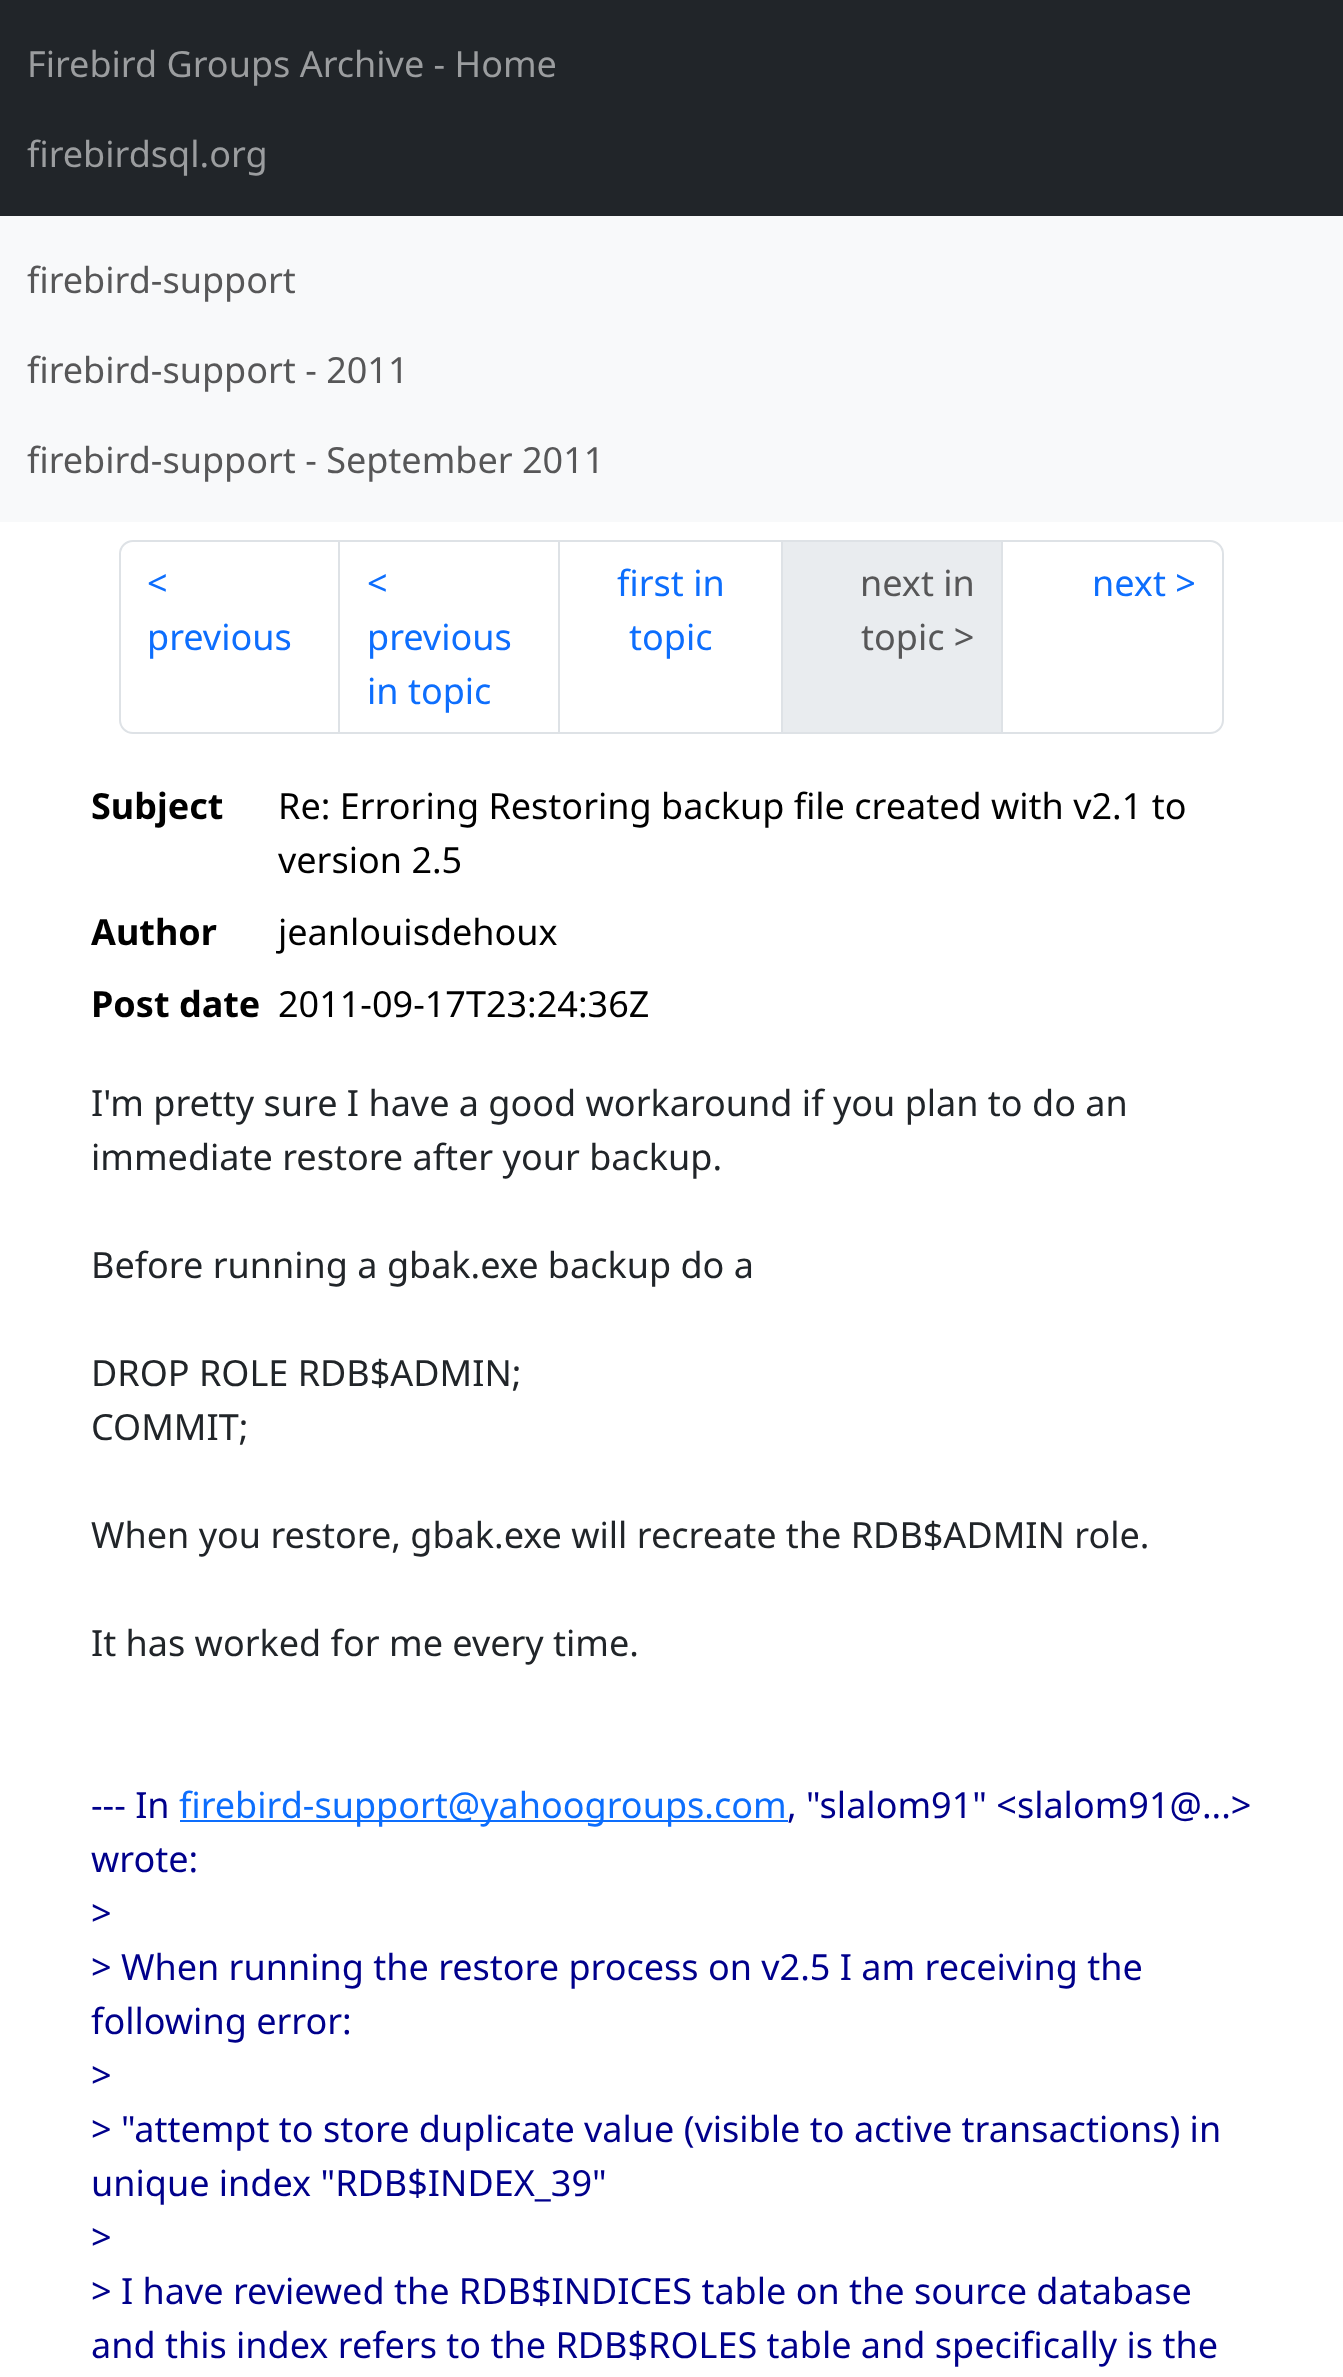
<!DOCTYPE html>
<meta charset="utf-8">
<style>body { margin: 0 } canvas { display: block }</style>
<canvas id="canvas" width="1343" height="2377"></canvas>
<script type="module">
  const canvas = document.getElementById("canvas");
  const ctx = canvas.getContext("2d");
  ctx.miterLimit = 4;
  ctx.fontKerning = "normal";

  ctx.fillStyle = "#ffffff";
  ctx.fillRect(0, 0, 1343, 2377);
  ctx.fillStyle = "#212529";
  ctx.fillRect(0, 0, 1343, 216);
  ctx.font = "36px Noto Sans";
  ctx.fillStyle = "#9b9d9f";
  ctx.fillText("Firebird Groups Archive - Home", 27, 77);
  ctx.fillText("firebirdsql.org", 27, 167);
  ctx.fillStyle = "#f8f9fa";
  ctx.fillRect(0, 216, 1343, 306);
  ctx.fillStyle = "#575758";
  ctx.fillText("firebird-support", 27, 293);
  ctx.fillText("firebird-support - 2011", 27, 383);
  ctx.fillText("firebird-support - September 2011", 27, 473);
  ctx.beginPath();
  ctx.roundRect(120, 541, 219, 192, [13, 0, 0, 13]);
  ctx.strokeStyle = "#dee2e6";
  ctx.lineWidth = 2;
  ctx.stroke();
  ctx.fillStyle = "#0d6efd";
  ctx.fillText("<", 147, 596);
  ctx.fillText("previous", 147, 650);
  ctx.strokeRect(339, 541, 220, 192);
  ctx.fillText("<", 367, 596);
  ctx.fillText("previous", 367, 650);
  ctx.fillText("in topic", 367, 704);
  ctx.strokeRect(559, 541, 223, 192);
  ctx.fillText("first in", 617, 596);
  ctx.fillText("topic", 629, 650);
  ctx.fillStyle = "#e9ecef";
  ctx.fillRect(783, 542, 218, 190);
  ctx.strokeRect(782, 541, 221, 192);
  ctx.fillStyle = "#575758";
  ctx.fillText("next in", 860, 596);
  ctx.fillText("topic >", 861, 650);
  ctx.fillStyle = "#ffffff";
  ctx.beginPath();
  ctx.roundRect(1002, 541, 221, 192, [0, 13, 13, 0]);
  ctx.fill();
  ctx.stroke();
  ctx.fillStyle = "#0d6efd";
  ctx.fillText("next >", 1092, 596);
  ctx.font = "bold 36px Noto Sans";
  ctx.fillStyle = "#000000";
  ctx.fillText("Subject", 91, 819);
  ctx.font = "36px Noto Sans";
  ctx.fillText("Re: Erroring Restoring backup file created with v2.1 to", 278, 819);
  ctx.fillText("version 2.5", 278, 873);
  ctx.font = "bold 36px Noto Sans";
  ctx.fillText("Author", 91, 945);
  ctx.font = "36px Noto Sans";
  ctx.fillText("jeanlouisdehoux", 278, 945);
  ctx.font = "bold 36px Noto Sans";
  ctx.fillText("Post date", 91, 1017);
  ctx.font = "36px Noto Sans";
  ctx.fillText("2011-09-17T23:24:36Z", 278, 1017);
  ctx.fillStyle = "#212529";
  ctx.fillText("I'm pretty sure I have a good workaround if you plan to do an", 91, 1116);
  ctx.fillText("immediate restore after your backup.", 91, 1170);
  ctx.fillText("Before running a gbak.exe backup do a", 91, 1278);
  ctx.fillText("DROP ROLE RDB$ADMIN;", 91, 1386);
  ctx.fillText("COMMIT;", 91, 1440);
  ctx.fillText("When you restore, gbak.exe will recreate the RDB$ADMIN role.", 91, 1548);
  ctx.fillText("It has worked for me every time.", 91, 1656);
  ctx.fillStyle = "#00008b";
  ctx.fillText("--- In", 91, 1818);
  ctx.fillStyle = "#0d6efd";
  ctx.fillRect(180, 1820, 608, 2);
  ctx.fillText("firebird-support@yahoogroups.com", 179, 1818);
  ctx.fillStyle = "#00008b";
  ctx.fillText(", \"slalom91\" <slalom91@...>", 787, 1818);
  ctx.fillText("wrote:", 91, 1872);
  ctx.fillText(">", 91, 1926);
  ctx.fillText("> When running the restore process on v2.5 I am receiving the", 91, 1980);
  ctx.fillText("following error:", 91, 2034);
  ctx.fillText(">", 91, 2088);
  ctx.fillText("> \"attempt to store duplicate value (visible to active transactions) in", 91, 2142);
  ctx.fillText("unique index \"RDB$INDEX_39\"", 91, 2196);
  ctx.fillText(">", 91, 2250);
  ctx.fillText("> I have reviewed the RDB$INDICES table on the source database", 91, 2304);
  ctx.fillText("and this index refers to the RDB$ROLES table and specifically is the", 91, 2358);
</script>
